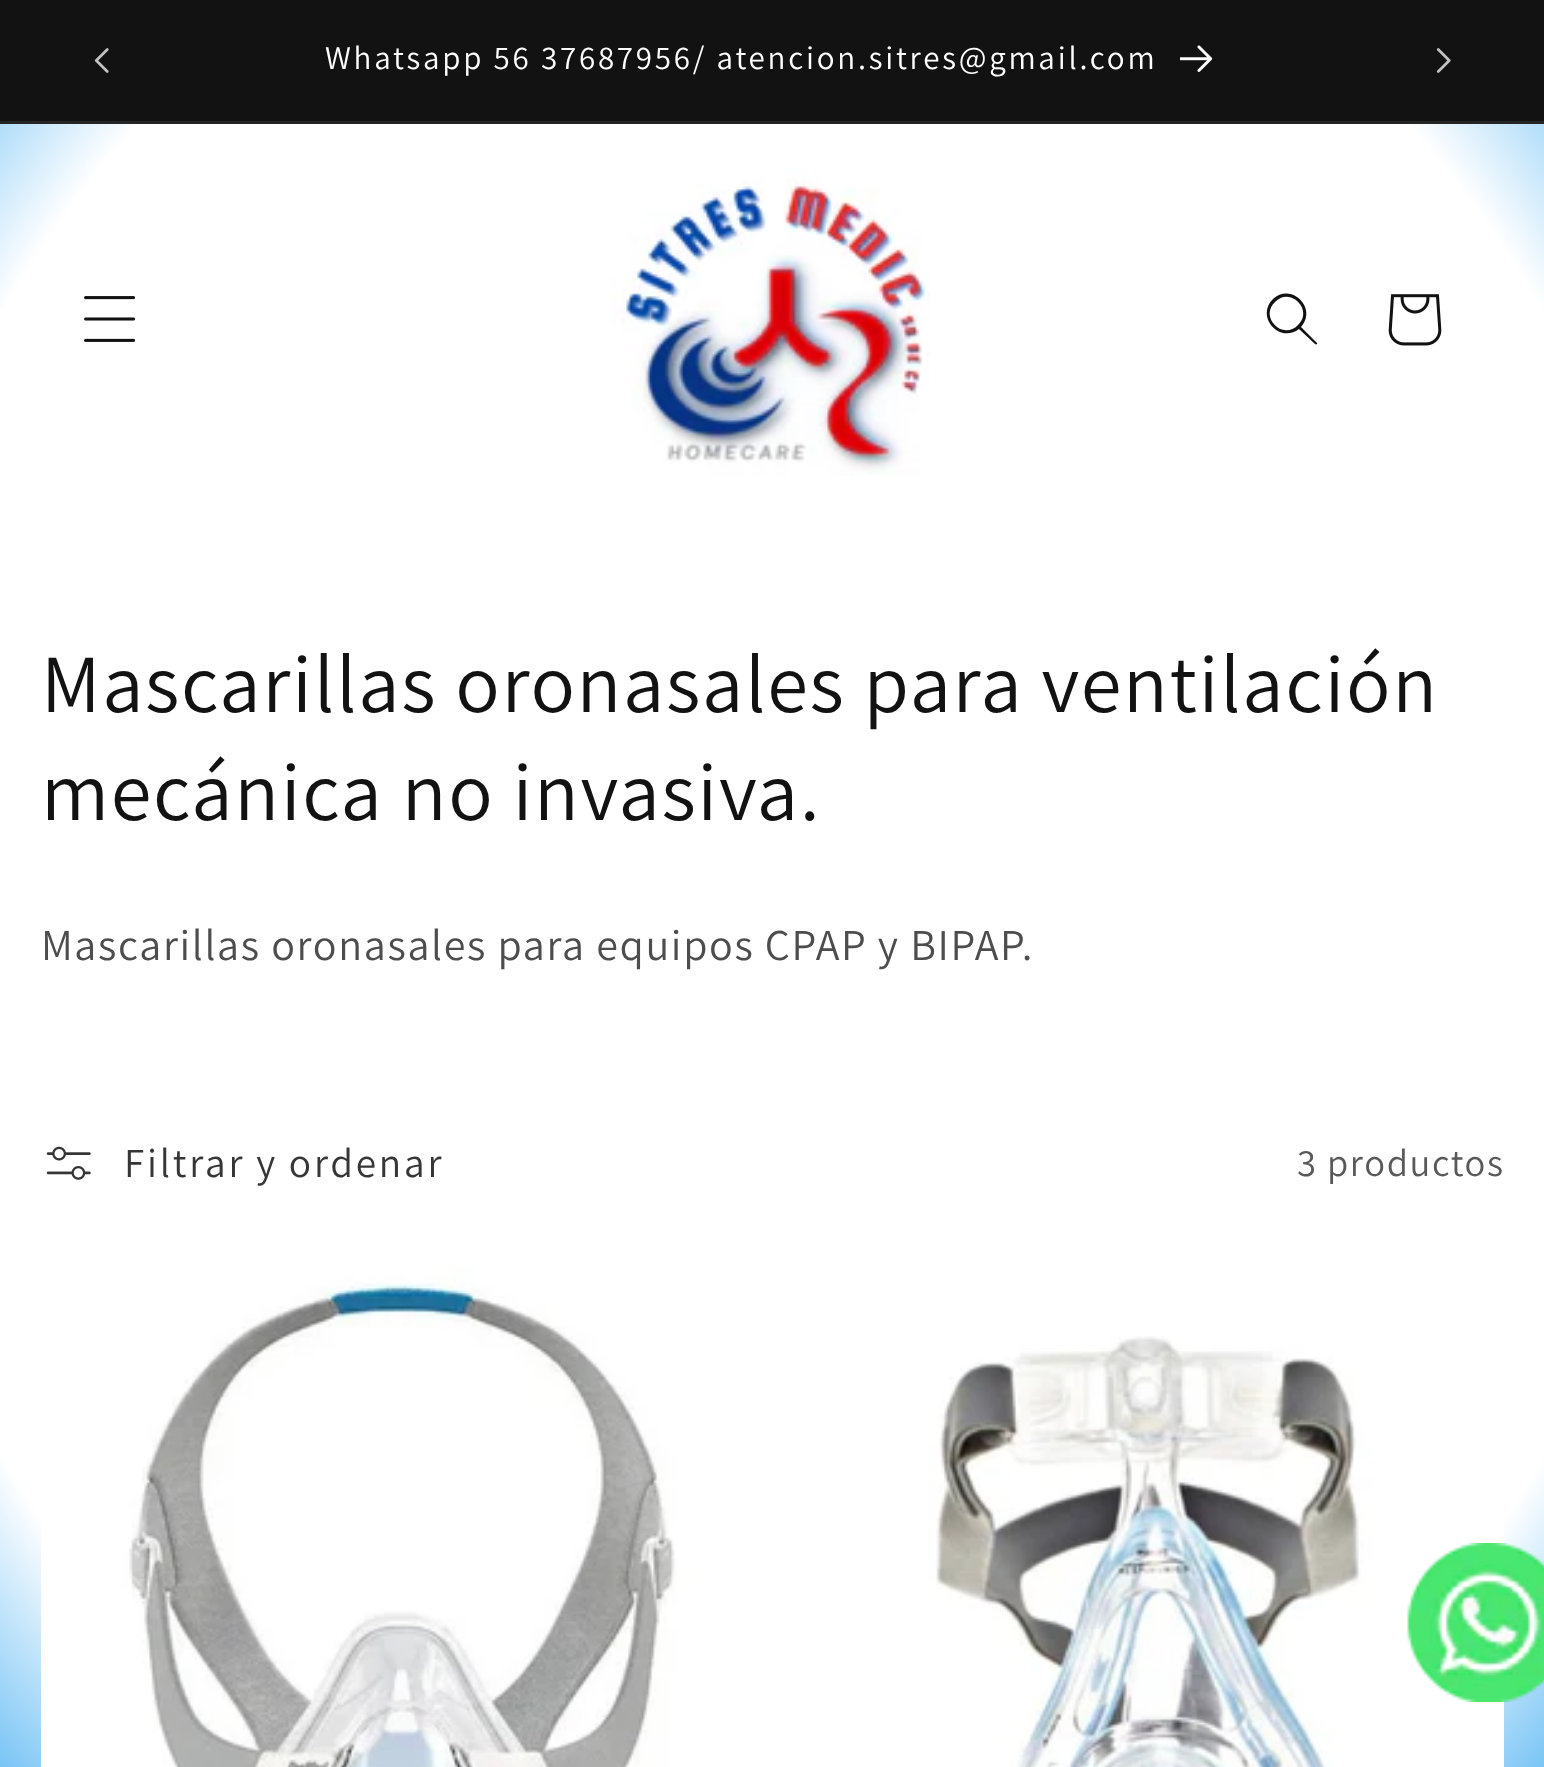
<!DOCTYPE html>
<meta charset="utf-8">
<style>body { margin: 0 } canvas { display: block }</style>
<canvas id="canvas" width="1544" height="1767"></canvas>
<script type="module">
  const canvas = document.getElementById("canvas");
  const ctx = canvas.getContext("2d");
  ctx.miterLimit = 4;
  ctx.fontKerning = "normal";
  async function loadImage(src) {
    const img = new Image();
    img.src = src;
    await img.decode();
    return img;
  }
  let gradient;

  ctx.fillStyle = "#ffffff";
  ctx.fillRect(0, 0, 1544, 1767);
  ctx.fillStyle = "#121212";
  ctx.fillRect(0, 0, 1544, 121);
  ctx.fillStyle = "#252525";
  ctx.fillRect(0, 121, 1544, 3);
  ctx.drawImage(await loadImage("img1.png"), 94, 48, 15, 25);
  ctx.letterSpacing = "2.75px";
  ctx.font = "33px Assistant";
  ctx.fillStyle = "#ffffff";
  ctx.fillText("Whatsapp 56 37687956/ atencion.sitres@gmail.com", 325, 69);
  ctx.drawImage(await loadImage("img2.png"), 1180, 45, 33, 27);
  ctx.drawImage(await loadImage("img3.png"), 1436, 48, 15, 25);
  gradient = ctx.createRadialGradient(773, 772.97, 0, 773, 772.97, 1093);
  gradient.addColorStop(0.84, "#ffffff");
  gradient.addColorStop(1, "#78c4f5");
  ctx.fillStyle = gradient;
  ctx.beginPath();
  ctx.rect(0, 124, 1544, 186);
  ctx.save();
  ctx.clip();
  ctx.scale(1, 1250 / 1093);
  ctx.fillRect(0, 0, 1544, 1546);
  ctx.restore();
  ctx.drawImage(await loadImage("img4.png"), 84, 296, 52, 46);
  ctx.drawImage(await loadImage("img5.png"), 611, 168, 319, 308);
  ctx.fillStyle = "#121212";
  ctx.beginPath();
  ctx.moveTo(1298, 325);
  ctx.bezierCurveTo(1283, 341, 1259, 317, 1275, 302);
  ctx.bezierCurveTo(1290, 286, 1314, 310, 1298, 325);
  ctx.moveTo(1299, 329);
  ctx.bezierCurveTo(1280, 344, 1255, 317, 1273, 299);
  ctx.bezierCurveTo(1291, 282, 1318, 308, 1301, 327);
  ctx.lineTo(1317, 343);
  ctx.bezierCurveTo(1318, 344, 1316, 345, 1315, 344);
  ctx.closePath();
  ctx.fill("evenodd");
  ctx.drawImage(await loadImage("img6.png"), 1388, 294, 54, 52);
  ctx.letterSpacing = "1.65px";
  ctx.font = "82.5px Assistant";
  ctx.fillText("Mascarillas oronasales para ventilación", 41, 712);
  ctx.fillText("mecánica no invasiva.", 41, 820);
  ctx.font = "44px Assistant";
  ctx.fillStyle = "#4d4d4d";
  ctx.fillText("Mascarillas oronasales para equipos CPAP y BIPAP.", 41, 960);
  gradient = ctx.createRadialGradient(773, 772.97, 0, 773, 772.97, 1093);
  gradient.addColorStop(0.84, "#ffffff");
  gradient.addColorStop(1, "#78c4f5");
  ctx.fillStyle = gradient;
  ctx.beginPath();
  ctx.rect(0, 1458, 1544, 309);
  ctx.save();
  ctx.clip();
  ctx.scale(1, 1250 / 1093);
  ctx.fillRect(0, 0, 1544, 1546);
  ctx.restore();
  ctx.drawImage(await loadImage("img7.png"), 46, 1146, 45, 34);
  ctx.letterSpacing = "2.75px";
  ctx.font = "41.25px Assistant";
  ctx.fillStyle = "#363636";
  ctx.fillText("Filtrar y ordenar", 124, 1177);
  ctx.letterSpacing = "1.65px";
  ctx.font = "38.5px Assistant";
  ctx.fillStyle = "#595959";
  ctx.fillText("3 productos", 1297, 1176);
  ctx.drawImage(await loadImage("img8.png"), 41, 1246, 726, 521);
  ctx.drawImage(await loadImage("img9.png"), 778, 1246, 726, 521);
  ctx.drawImage(await loadImage("img10.png"), 1407, 1543, 137, 159);
</script>
